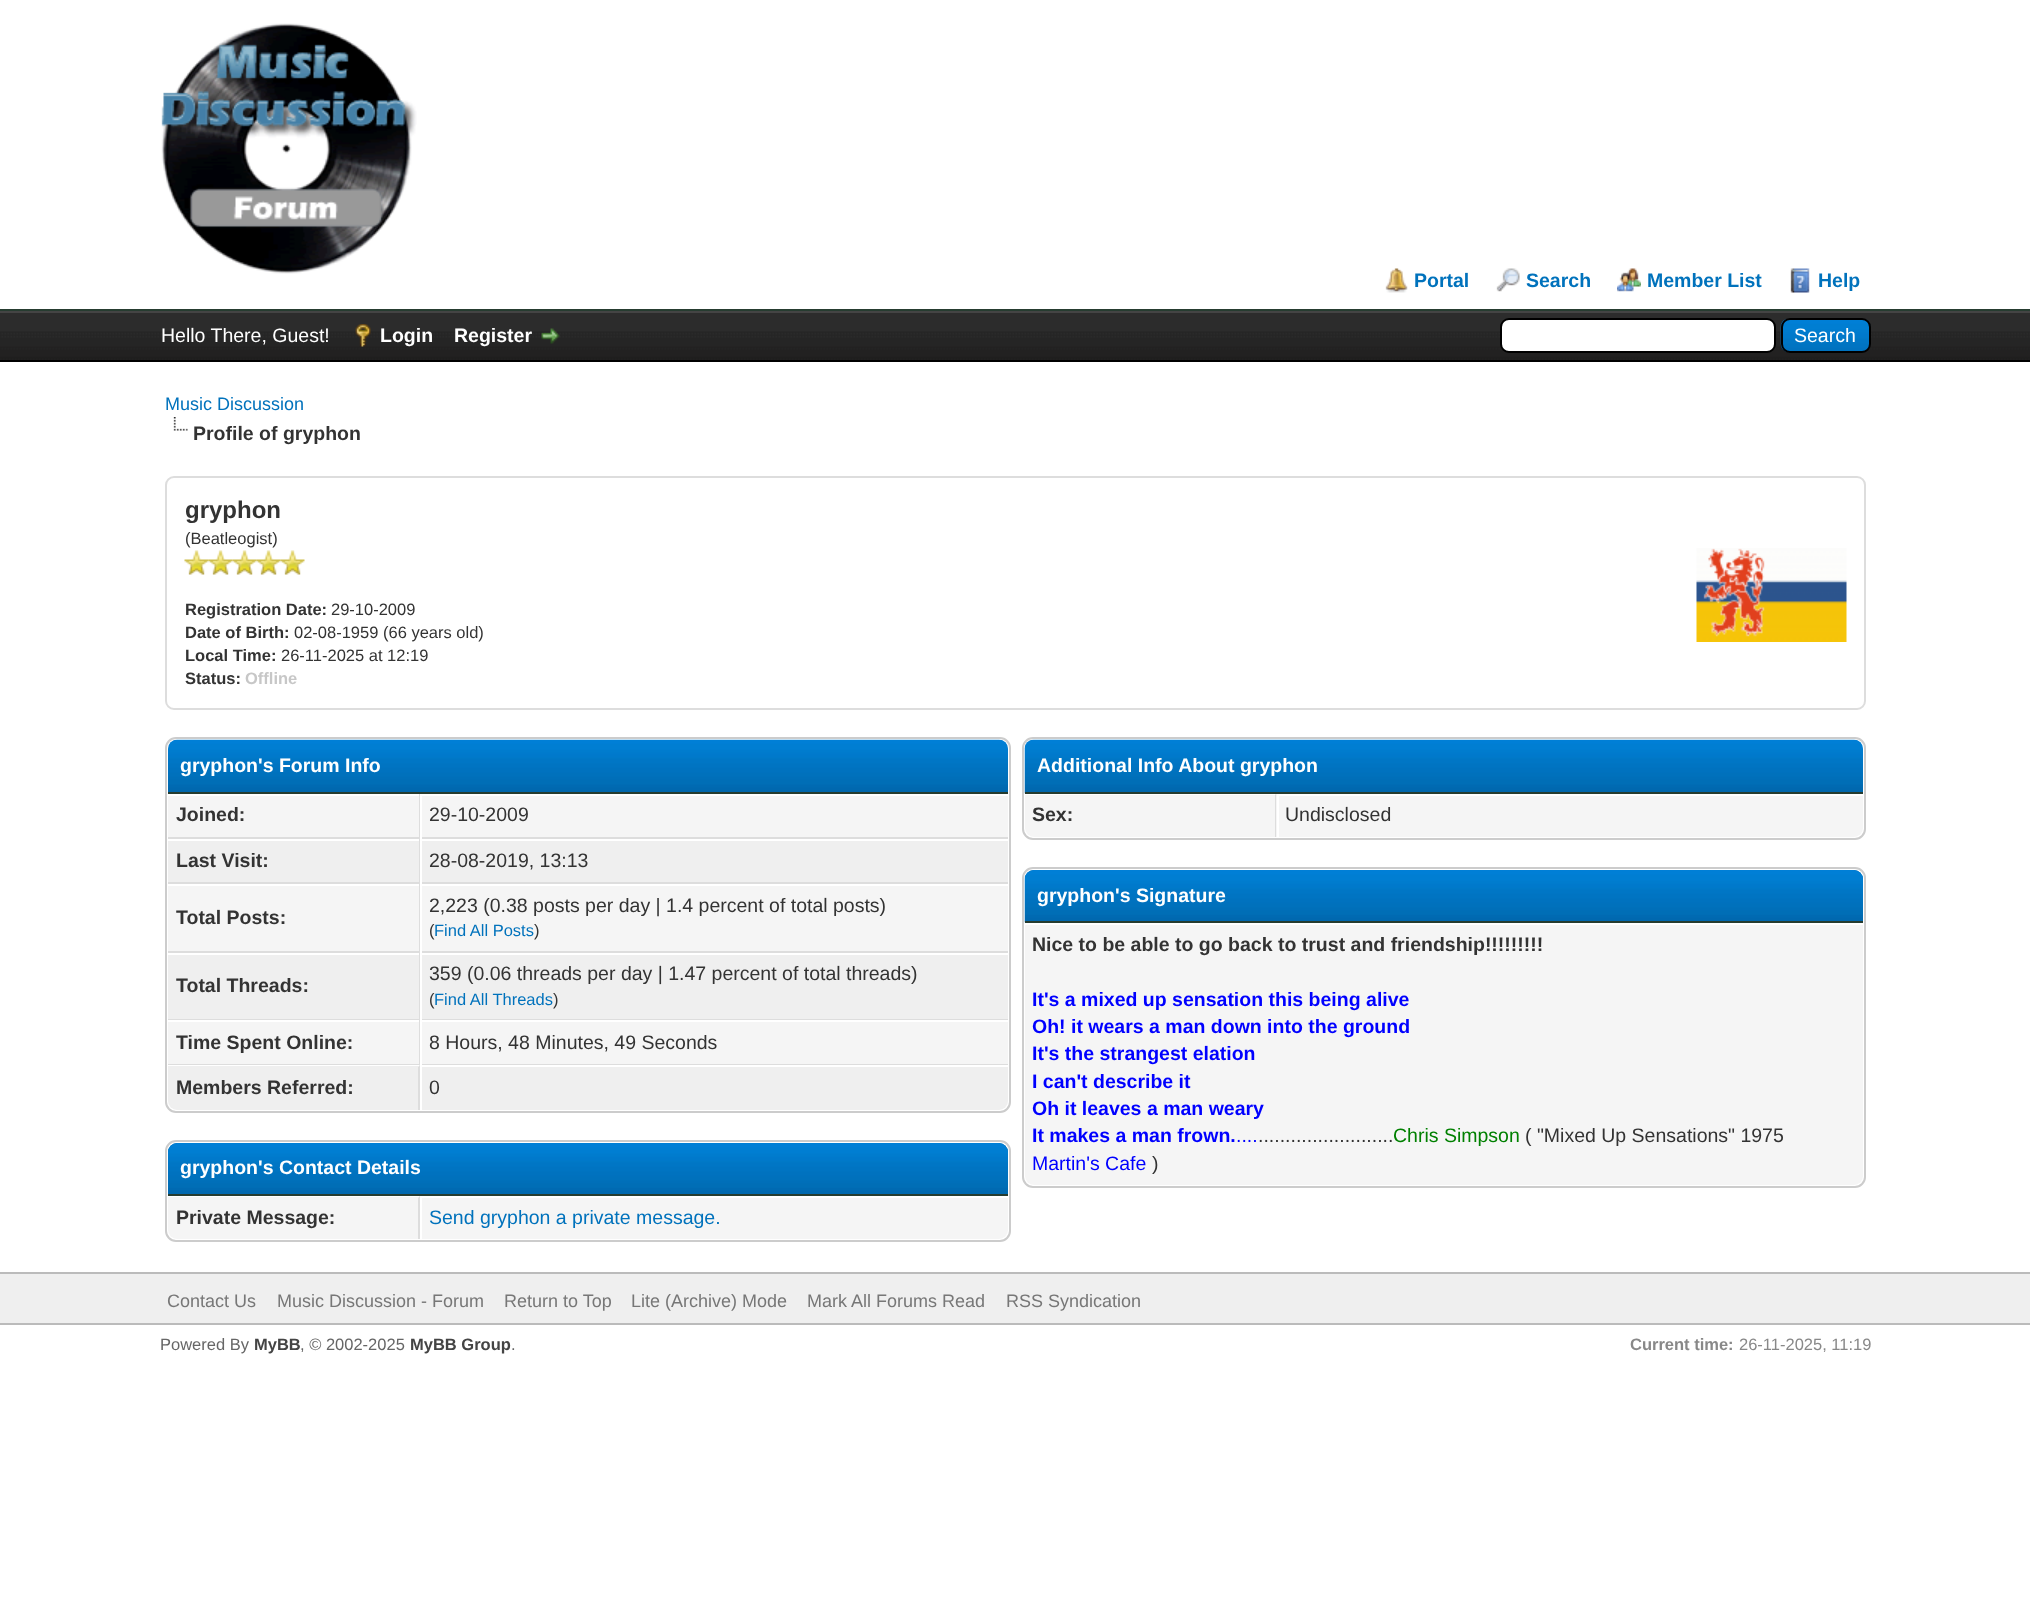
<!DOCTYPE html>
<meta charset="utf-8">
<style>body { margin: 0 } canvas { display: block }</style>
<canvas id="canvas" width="2030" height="1609"></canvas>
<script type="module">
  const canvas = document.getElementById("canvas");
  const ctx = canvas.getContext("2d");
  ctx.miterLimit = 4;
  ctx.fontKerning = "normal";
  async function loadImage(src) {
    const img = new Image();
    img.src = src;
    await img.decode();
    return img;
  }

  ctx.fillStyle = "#ffffff";
  ctx.fillRect(0, 0, 2030, 1609);
  ctx.fillStyle = "#263c30";
  ctx.fillRect(0, 309, 2030, 2);
  ctx.drawImage(await loadImage("img1.png"), 161, 23, 256, 251);
  ctx.drawImage(await loadImage("img2.png"), 1385, 268, 23, 25);
  ctx.font = "bold 19.5px Liberation Sans";
  ctx.fillStyle = "#0072bc";
  ctx.fillText("Portal", 1414, 287);
  ctx.drawImage(await loadImage("img3.png"), 1496, 268, 24, 24);
  ctx.fillText("Search", 1526, 287);
  ctx.drawImage(await loadImage("img4.png"), 1617, 268, 24, 24);
  ctx.fillText("Member List", 1647, 287);
  ctx.drawImage(await loadImage("img5.png"), 1790, 268, 20, 25);
  ctx.fillText("Help", 1818, 287);
  ctx.drawImage(await loadImage("img6.png"), 0, 313, 2030, 47);
  ctx.fillStyle = "#444444";
  ctx.fillRect(0, 311, 2030, 2);
  ctx.fillStyle = "#000000";
  ctx.fillRect(0, 360, 2030, 2);
  ctx.font = "19.5px Liberation Sans";
  ctx.fillStyle = "#ffffff";
  ctx.fillText("Hello There, Guest!", 161, 342);
  ctx.drawImage(await loadImage("img7.png"), 355, 324, 16, 23);
  ctx.font = "bold 19.5px Liberation Sans";
  ctx.fillText("Login", 380, 342);
  ctx.fillText("Register", 454, 342);
  ctx.drawImage(await loadImage("img8.png"), 541, 328, 19, 16);
  ctx.beginPath();
  ctx.roundRect(1501, 319, 274, 33, 8);
  ctx.fill();
  ctx.strokeStyle = "#000000";
  ctx.lineWidth = 2;
  ctx.stroke();
  ctx.drawImage(await loadImage("img9.png"), 1780, 319, 91, 34);
  ctx.beginPath();
  ctx.roundRect(1782, 319, 88, 33, 8);
  ctx.stroke();
  ctx.font = "19.5px Liberation Sans";
  ctx.fillText("Search", 1794, 342);
  ctx.font = "18px Liberation Sans";
  ctx.fillStyle = "#0072bc";
  ctx.fillText("Music Discussion", 165, 410);
  ctx.drawImage(await loadImage("img10.png"), 173, 417, 15, 14);
  ctx.font = "bold 19.5px Liberation Sans";
  ctx.fillStyle = "#333333";
  ctx.fillText("Profile of gryphon", 193, 440);
  ctx.beginPath();
  ctx.roundRect(166, 477, 1699, 232, 8);
  ctx.strokeStyle = "#dddddd";
  ctx.stroke();
  ctx.font = "bold 24px Liberation Sans";
  ctx.fillText("gryphon", 185, 518);
  ctx.font = "16.5px Liberation Sans";
  ctx.fillText("(Beatleogist)", 185, 544);
  ctx.drawImage(await loadImage("img11.png"), 184, 550, 25, 25);
  ctx.drawImage(await loadImage("img12.png"), 208, 550, 25, 25);
  ctx.drawImage(await loadImage("img12.png"), 232, 550, 25, 25);
  ctx.drawImage(await loadImage("img12.png"), 256, 550, 25, 25);
  ctx.drawImage(await loadImage("img13.png"), 280, 550, 25, 25);
  ctx.font = "bold 16.5px Liberation Sans";
  ctx.fillText("Registration Date:", 185, 615);
  ctx.font = "16.5px Liberation Sans";
  ctx.fillText("29-10-2009", 331, 615);
  ctx.font = "bold 16.5px Liberation Sans";
  ctx.fillText("Date of Birth:", 185, 638);
  ctx.font = "16.5px Liberation Sans";
  ctx.fillText("02-08-1959 (66 years old)", 294, 638);
  ctx.font = "bold 16.5px Liberation Sans";
  ctx.fillText("Local Time:", 185, 661);
  ctx.font = "16.5px Liberation Sans";
  ctx.fillText("26-11-2025 at 12:19", 281, 661);
  ctx.font = "bold 16.5px Liberation Sans";
  ctx.fillText("Status:", 185, 684);
  ctx.fillStyle = "#c7c7c7";
  ctx.fillText("Offline", 245, 684);
  ctx.drawImage(await loadImage("img14.png"), 1696, 548, 151, 94);
  ctx.beginPath();
  ctx.roundRect(166, 738, 844, 374, 10);
  ctx.strokeStyle = "#cccccc";
  ctx.stroke();
  ctx.drawImage(await loadImage("img15.png"), 168, 739, 840, 53);
  ctx.fillStyle = "#263c30";
  ctx.fillRect(168, 792, 840, 2);
  ctx.font = "bold 19.5px Liberation Sans";
  ctx.fillStyle = "#ffffff";
  ctx.fillText("gryphon's Forum Info", 180, 772);
  ctx.fillStyle = "#f5f5f5";
  ctx.fillRect(168, 796, 251, 41);
  ctx.fillStyle = "#dddddd";
  ctx.fillRect(419, 794, 1, 271);
  ctx.fillRect(168, 837, 840, 2);
  ctx.fillStyle = "#333333";
  ctx.fillText("Joined:", 176, 821);
  ctx.fillStyle = "#f5f5f5";
  ctx.fillRect(422, 796, 586, 41);
  ctx.fillStyle = "#ffffff";
  ctx.fillRect(420, 837, 2, 2);
  ctx.font = "19.5px Liberation Sans";
  ctx.fillStyle = "#333333";
  ctx.fillText("29-10-2009", 429, 821);
  ctx.fillStyle = "#efefef";
  ctx.fillRect(168, 841, 251, 41);
  ctx.fillStyle = "#dddddd";
  ctx.fillRect(168, 882, 840, 2);
  ctx.font = "bold 19.5px Liberation Sans";
  ctx.fillStyle = "#333333";
  ctx.fillText("Last Visit:", 176, 867);
  ctx.fillStyle = "#efefef";
  ctx.fillRect(422, 841, 586, 41);
  ctx.fillStyle = "#ffffff";
  ctx.fillRect(420, 882, 2, 2);
  ctx.font = "19.5px Liberation Sans";
  ctx.fillStyle = "#333333";
  ctx.fillText("28-08-2019, 13:13", 429, 867);
  ctx.fillStyle = "#f5f5f5";
  ctx.fillRect(168, 886, 251, 65);
  ctx.fillStyle = "#dddddd";
  ctx.fillRect(168, 951, 840, 2);
  ctx.font = "bold 19.5px Liberation Sans";
  ctx.fillStyle = "#333333";
  ctx.fillText("Total Posts:", 176, 924);
  ctx.fillStyle = "#f5f5f5";
  ctx.fillRect(422, 886, 586, 65);
  ctx.fillStyle = "#ffffff";
  ctx.fillRect(420, 951, 2, 2);
  ctx.font = "19.5px Liberation Sans";
  ctx.fillStyle = "#333333";
  ctx.fillText("2,223 (0.38 posts per day | 1.4 percent of total posts)", 429, 912);
  ctx.font = "16.5px Liberation Sans";
  ctx.fillText("(", 429, 936);
  ctx.fillStyle = "#0072bc";
  ctx.fillText("Find All Posts", 434, 936);
  ctx.fillStyle = "#333333";
  ctx.fillText(")", 534, 936);
  ctx.fillStyle = "#efefef";
  ctx.fillRect(168, 955, 251, 64);
  ctx.fillStyle = "#dddddd";
  ctx.fillRect(168, 1019, 840, 1);
  ctx.font = "bold 19.5px Liberation Sans";
  ctx.fillStyle = "#333333";
  ctx.fillText("Total Threads:", 176, 992);
  ctx.fillStyle = "#efefef";
  ctx.fillRect(422, 955, 586, 64);
  ctx.fillStyle = "#ffffff";
  ctx.fillRect(420, 1019, 2, 1);
  ctx.font = "19.5px Liberation Sans";
  ctx.fillStyle = "#333333";
  ctx.fillText("359 (0.06 threads per day | 1.47 percent of total threads)", 429, 980);
  ctx.font = "16.5px Liberation Sans";
  ctx.fillText("(", 429, 1005);
  ctx.fillStyle = "#0072bc";
  ctx.fillText("Find All Threads", 434, 1005);
  ctx.fillStyle = "#333333";
  ctx.fillText(")", 553, 1005);
  ctx.fillStyle = "#f5f5f5";
  ctx.fillRect(168, 1022, 251, 42);
  ctx.fillStyle = "#dddddd";
  ctx.fillRect(168, 1064, 840, 1);
  ctx.font = "bold 19.5px Liberation Sans";
  ctx.fillStyle = "#333333";
  ctx.fillText("Time Spent Online:", 176, 1049);
  ctx.fillStyle = "#f5f5f5";
  ctx.fillRect(422, 1022, 586, 42);
  ctx.fillStyle = "#ffffff";
  ctx.fillRect(420, 1064, 2, 1);
  ctx.font = "19.5px Liberation Sans";
  ctx.fillStyle = "#333333";
  ctx.fillText("8 Hours, 48 Minutes, 49 Seconds", 429, 1049);
  ctx.fillStyle = "#efefef";
  ctx.beginPath();
  ctx.roundRect(168, 1065, 252, 45, [0, 0, 0, 9]);
  ctx.fill();
  ctx.fillStyle = "#ffffff";
  ctx.beginPath();
  ctx.moveTo(168, 1065);
  ctx.lineTo(168, 1066);
  ctx.lineTo(418, 1066);
  ctx.lineTo(418, 1067);
  ctx.lineTo(420, 1065);
  ctx.closePath();
  ctx.fill();
  ctx.fillStyle = "#dddddd";
  ctx.beginPath();
  ctx.moveTo(420, 1065);
  ctx.lineTo(418, 1067);
  ctx.lineTo(418, 1110);
  ctx.lineTo(420, 1110);
  ctx.closePath();
  ctx.fill();
  ctx.font = "bold 19.5px Liberation Sans";
  ctx.fillStyle = "#333333";
  ctx.fillText("Members Referred:", 176, 1094);
  ctx.fillStyle = "#efefef";
  ctx.beginPath();
  ctx.roundRect(420, 1065, 588, 45, [0, 0, 9, 0]);
  ctx.fill();
  ctx.fillStyle = "#ffffff";
  ctx.fillRect(420, 1065, 588, 2);
  ctx.fillRect(420, 1065, 2, 45);
  ctx.font = "19.5px Liberation Sans";
  ctx.fillStyle = "#333333";
  ctx.fillText("0", 429, 1094);
  ctx.beginPath();
  ctx.roundRect(166, 1141, 844, 100, 10);
  ctx.stroke();
  ctx.fillStyle = "#0066a2";
  ctx.beginPath();
  ctx.roundRect(168, 1143, 840, 53, [9, 9, 0, 0]);
  ctx.fill();
  ctx.drawImage(await loadImage("img16.png"), 168, 1143, 840, 51);
  ctx.fillStyle = "#263c30";
  ctx.fillRect(168, 1194, 840, 2);
  ctx.font = "bold 19.5px Liberation Sans";
  ctx.fillStyle = "#ffffff";
  ctx.fillText("gryphon's Contact Details", 180, 1174);
  ctx.fillStyle = "#f5f5f5";
  ctx.beginPath();
  ctx.roundRect(168, 1196, 252, 43, [0, 0, 0, 9]);
  ctx.fill();
  ctx.fillStyle = "#ffffff";
  ctx.beginPath();
  ctx.moveTo(168, 1197);
  ctx.lineTo(418, 1197);
  ctx.lineTo(418, 1198);
  ctx.lineTo(420, 1196);
  ctx.lineTo(168, 1196);
  ctx.closePath();
  ctx.fill();
  ctx.fillStyle = "#dddddd";
  ctx.beginPath();
  ctx.moveTo(418, 1198);
  ctx.lineTo(420, 1196);
  ctx.lineTo(420, 1239);
  ctx.lineTo(418, 1239);
  ctx.closePath();
  ctx.fill();
  ctx.fillStyle = "#333333";
  ctx.fillText("Private Message:", 176, 1224);
  ctx.fillStyle = "#f5f5f5";
  ctx.beginPath();
  ctx.roundRect(420, 1196, 588, 43, [0, 0, 9, 0]);
  ctx.fill();
  ctx.fillStyle = "#ffffff";
  ctx.fillRect(420, 1196, 588, 2);
  ctx.fillRect(420, 1196, 2, 43);
  ctx.font = "19.5px Liberation Sans";
  ctx.fillStyle = "#0072bc";
  ctx.fillText("Send gryphon a private message.", 429, 1224);
  ctx.beginPath();
  ctx.roundRect(1023, 738, 842, 101, 10);
  ctx.stroke();
  ctx.drawImage(await loadImage("img17.png"), 1024, 739, 839, 55);
  ctx.fillStyle = "#263c30";
  ctx.fillRect(1025, 792, 838, 2);
  ctx.font = "bold 19.5px Liberation Sans";
  ctx.fillStyle = "#ffffff";
  ctx.fillText("Additional Info About gryphon", 1037, 772);
  ctx.fillStyle = "#f5f5f5";
  ctx.beginPath();
  ctx.roundRect(1025, 794, 252, 43, [0, 0, 0, 9]);
  ctx.fill();
  ctx.fillStyle = "#ffffff";
  ctx.beginPath();
  ctx.moveTo(1024, 795);
  ctx.lineTo(1024, 794);
  ctx.lineTo(1276, 794);
  ctx.lineTo(1275, 795);
  ctx.closePath();
  ctx.fill();
  ctx.fillStyle = "#dddddd";
  ctx.beginPath();
  ctx.moveTo(1275, 837);
  ctx.lineTo(1275, 795);
  ctx.lineTo(1276, 794);
  ctx.lineTo(1276, 837);
  ctx.closePath();
  ctx.fill();
  ctx.fillStyle = "#333333";
  ctx.fillText("Sex:", 1032, 821);
  ctx.fillStyle = "#f5f5f5";
  ctx.beginPath();
  ctx.roundRect(1277, 794, 586, 43, [0, 0, 9, 0]);
  ctx.fill();
  ctx.fillStyle = "#ffffff";
  ctx.fillRect(1277, 794, 586, 2);
  ctx.fillRect(1277, 794, 2, 43);
  ctx.font = "19.5px Liberation Sans";
  ctx.fillStyle = "#333333";
  ctx.fillText("Undisclosed", 1285, 821);
  ctx.beginPath();
  ctx.roundRect(1023, 868, 842, 319, 10);
  ctx.stroke();
  ctx.fillStyle = "#0066a2";
  ctx.beginPath();
  ctx.roundRect(1025, 870, 838, 53, [9, 9, 0, 0]);
  ctx.fill();
  ctx.drawImage(await loadImage("img18.png"), 1024, 870, 839, 53);
  ctx.fillStyle = "#263c30";
  ctx.fillRect(1025, 921, 838, 2);
  ctx.font = "bold 19.5px Liberation Sans";
  ctx.fillStyle = "#ffffff";
  ctx.fillText("gryphon's Signature", 1037, 902);
  ctx.fillStyle = "#f5f5f5";
  ctx.beginPath();
  ctx.roundRect(1025, 923, 838, 262, [0, 0, 9, 9]);
  ctx.fill();
  ctx.fillStyle = "#ffffff";
  ctx.fillRect(1025, 923, 838, 2);
  ctx.fillStyle = "#333333";
  ctx.fillText("Nice to be able to go back to trust and friendship!!!!!!!!!", 1032, 951);
  ctx.fillStyle = "#0000ff";
  ctx.fillText("It's a mixed up sensation this being alive", 1032, 1006);
  ctx.fillText("Oh! it wears a man down into the ground", 1032, 1033);
  ctx.fillText("It's the strangest elation", 1032, 1060);
  ctx.fillText("I can't describe it", 1032, 1088);
  ctx.fillText("Oh it leaves a man weary", 1032, 1115);
  ctx.fillText("It makes a man frown.", 1032, 1142);
  ctx.font = "19.5px Liberation Sans";
  ctx.fillText("....", 1236, 1142);
  ctx.fillStyle = "#333333";
  ctx.fillText(".........................", 1258, 1142);
  ctx.fillStyle = "#008000";
  ctx.fillText("Chris Simpson", 1393, 1142);
  ctx.fillStyle = "#333333";
  ctx.fillText("( \"Mixed Up Sensations\" 1975", 1525, 1142);
  ctx.fillStyle = "#0000ff";
  ctx.fillText("Martin's Cafe", 1032, 1170);
  ctx.fillStyle = "#333333";
  ctx.fillText(")", 1152, 1170);
  ctx.fillStyle = "#efefef";
  ctx.fillRect(0, 1274, 2030, 49);
  ctx.fillStyle = "#bbbbbb";
  ctx.fillRect(0, 1272, 2030, 2);
  ctx.fillRect(0, 1323, 2030, 2);
  ctx.font = "18px Liberation Sans";
  ctx.fillStyle = "#777777";
  ctx.fillText("Contact Us", 167, 1307);
  ctx.fillText("Music Discussion - Forum", 277, 1307);
  ctx.fillText("Return to Top", 504, 1307);
  ctx.fillText("Lite (Archive) Mode", 631, 1307);
  ctx.fillText("Mark All Forums Read", 807, 1307);
  ctx.fillText("RSS Syndication", 1006, 1307);
  ctx.font = "16.5px Liberation Sans";
  ctx.fillStyle = "#666666";
  ctx.fillText("Powered By", 160, 1350);
  ctx.font = "bold 16.5px Liberation Sans";
  ctx.fillStyle = "#444444";
  ctx.fillText("MyBB", 254, 1350);
  ctx.font = "16.5px Liberation Sans";
  ctx.fillStyle = "#666666";
  ctx.fillText(", © 2002-2025", 300, 1350);
  ctx.font = "bold 16.5px Liberation Sans";
  ctx.fillStyle = "#444444";
  ctx.fillText("MyBB Group", 410, 1350);
  ctx.font = "16.5px Liberation Sans";
  ctx.fillStyle = "#666666";
  ctx.fillText(".", 511, 1350);
  ctx.font = "bold 16.5px Liberation Sans";
  ctx.fillStyle = "#888888";
  ctx.fillText("Current time:", 1630, 1350);
  ctx.font = "16.5px Liberation Sans";
  ctx.fillText("26-11-2025, 11:19", 1739, 1350);
</script>
